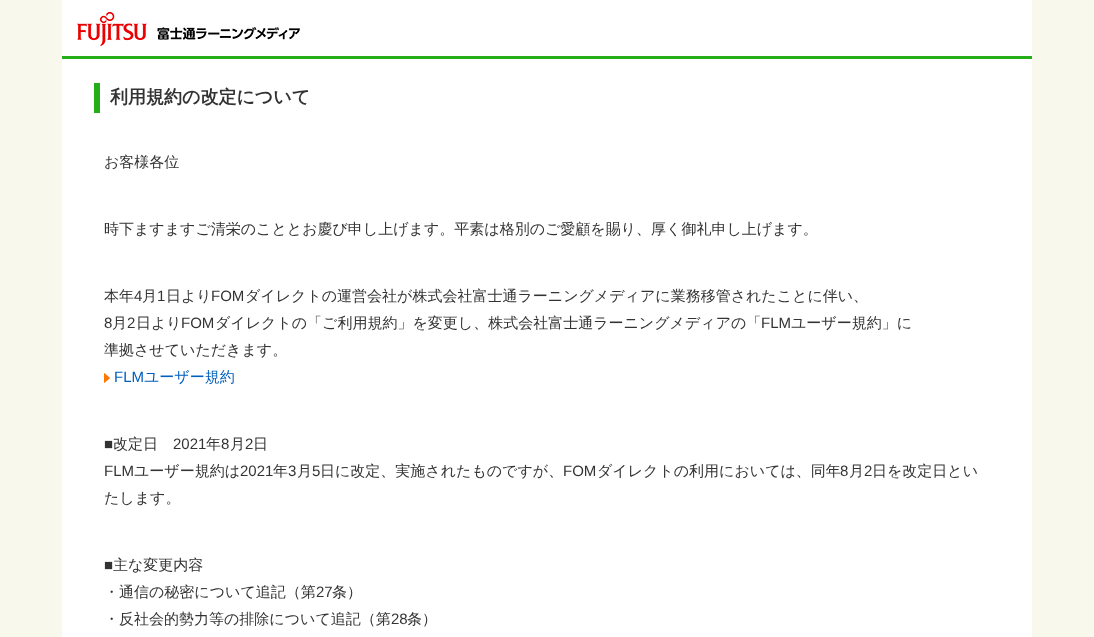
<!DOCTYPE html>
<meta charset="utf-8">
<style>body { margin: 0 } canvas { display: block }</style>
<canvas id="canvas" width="1094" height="637"></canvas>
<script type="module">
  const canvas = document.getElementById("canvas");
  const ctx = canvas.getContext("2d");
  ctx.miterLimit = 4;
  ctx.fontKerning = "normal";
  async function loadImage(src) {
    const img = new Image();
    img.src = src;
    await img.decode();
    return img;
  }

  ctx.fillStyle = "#f9f8ec";
  ctx.fillRect(0, 0, 1094, 637);
  ctx.fillStyle = "#ffffff";
  ctx.fillRect(62, 0, 970, 637);
  ctx.drawImage(await loadImage("img1.png"), 77, 12, 223, 34);
  ctx.fillStyle = "#25ae18";
  ctx.fillRect(62, 56, 970, 3);
  ctx.fillRect(94, 83, 6, 30);
  ctx.font = "bold 18px WenQuanYi Zen Hei";
  ctx.fillStyle = "#333333";
  ctx.fillText("利用規約の改定について", 110, 103);
  ctx.font = "500 15px WenQuanYi Zen Hei";
  ctx.fillText("お客様各位", 104, 167);
  ctx.fillText("時下ますますご清栄のこととお慶び申し上げます。平素は格別のご愛顧を賜り、厚く御礼申し上げます。", 104, 234);
  ctx.fillText("本年", 104, 301);
  ctx.font = "15px Liberation Sans";
  ctx.fillText("4", 134, 301);
  ctx.font = "500 15px WenQuanYi Zen Hei";
  ctx.fillText("月", 142, 301);
  ctx.font = "15px Liberation Sans";
  ctx.fillText("1", 157, 301);
  ctx.font = "500 15px WenQuanYi Zen Hei";
  ctx.fillText("日より", 166, 301);
  ctx.font = "15px Liberation Sans";
  ctx.fillText("FOM", 211, 301);
  ctx.font = "500 15px WenQuanYi Zen Hei";
  ctx.fillText("ダイレクトの運営会社が株式会社富士通ラーニングメディアに業務移管されたことに伴い、", 245, 301);
  ctx.font = "15px Liberation Sans";
  ctx.fillText("8", 104, 328);
  ctx.font = "500 15px WenQuanYi Zen Hei";
  ctx.fillText("月", 112, 328);
  ctx.font = "15px Liberation Sans";
  ctx.fillText("2", 127, 328);
  ctx.font = "500 15px WenQuanYi Zen Hei";
  ctx.fillText("日より", 136, 328);
  ctx.font = "15px Liberation Sans";
  ctx.fillText("FOM", 181, 328);
  ctx.font = "500 15px WenQuanYi Zen Hei";
  ctx.fillText("ダイレクトの「ご利用規約」を変更し、株式会社富士通ラーニングメディアの「", 215, 328);
  ctx.font = "15px Liberation Sans";
  ctx.fillText("FLM", 761, 328);
  ctx.font = "500 15px WenQuanYi Zen Hei";
  ctx.fillText("ユーザー規約」に", 791, 328);
  ctx.fillText("準拠させていただきます。", 104, 355);
  ctx.drawImage(await loadImage("img2.png"), 104, 373, 6, 10);
  ctx.font = "15px Liberation Sans";
  ctx.fillStyle = "#005fbd";
  ctx.fillText("FLM", 114, 382);
  ctx.font = "500 15px WenQuanYi Zen Hei";
  ctx.fillText("ユーザー規約", 144, 382);
  ctx.font = "15px Liberation Sans";
  ctx.fillStyle = "#333333";
  ctx.fillText("■", 104, 449);
  ctx.font = "500 15px WenQuanYi Zen Hei";
  ctx.fillText("改定日", 113, 449);
  ctx.font = "15px Liberation Sans";
  ctx.fillText("2021", 173, 449);
  ctx.font = "500 15px WenQuanYi Zen Hei";
  ctx.fillText("年", 206, 449);
  ctx.font = "15px Liberation Sans";
  ctx.fillText("8", 221, 449);
  ctx.font = "500 15px WenQuanYi Zen Hei";
  ctx.fillText("月", 230, 449);
  ctx.font = "15px Liberation Sans";
  ctx.fillText("2", 245, 449);
  ctx.font = "500 15px WenQuanYi Zen Hei";
  ctx.fillText("日", 253, 449);
  ctx.font = "15px Liberation Sans";
  ctx.fillText("FLM", 104, 476);
  ctx.font = "500 15px WenQuanYi Zen Hei";
  ctx.fillText("ユーザー規約は", 134, 476);
  ctx.font = "15px Liberation Sans";
  ctx.fillText("2021", 240, 476);
  ctx.font = "500 15px WenQuanYi Zen Hei";
  ctx.fillText("年", 273, 476);
  ctx.font = "15px Liberation Sans";
  ctx.fillText("3", 288, 476);
  ctx.font = "500 15px WenQuanYi Zen Hei";
  ctx.fillText("月", 297, 476);
  ctx.font = "15px Liberation Sans";
  ctx.fillText("5", 312, 476);
  ctx.font = "500 15px WenQuanYi Zen Hei";
  ctx.fillText("日に改定、実施されたものですが、", 320, 476);
  ctx.font = "15px Liberation Sans";
  ctx.fillText("FOM", 563, 476);
  ctx.font = "500 15px WenQuanYi Zen Hei";
  ctx.fillText("ダイレクトの利用においては、同年", 597, 476);
  ctx.font = "15px Liberation Sans";
  ctx.fillText("8", 840, 476);
  ctx.font = "500 15px WenQuanYi Zen Hei";
  ctx.fillText("月", 849, 476);
  ctx.font = "15px Liberation Sans";
  ctx.fillText("2", 864, 476);
  ctx.font = "500 15px WenQuanYi Zen Hei";
  ctx.fillText("日を改定日とい", 872, 476);
  ctx.fillText("たします。", 104, 503);
  ctx.font = "15px Liberation Sans";
  ctx.fillText("■", 104, 570);
  ctx.font = "500 15px WenQuanYi Zen Hei";
  ctx.fillText("主な変更内容", 113, 570);
  ctx.fillText("・通信の秘密について追記（第", 104, 597);
  ctx.font = "15px Liberation Sans";
  ctx.fillText("27", 316, 597);
  ctx.font = "500 15px WenQuanYi Zen Hei";
  ctx.fillText("条）", 332, 597);
  ctx.fillText("・反社会的勢力等の排除について追記（第", 104, 624);
  ctx.font = "15px Liberation Sans";
  ctx.fillText("28", 391, 624);
  ctx.font = "500 15px WenQuanYi Zen Hei";
  ctx.fillText("条）", 407, 624);
</script>
